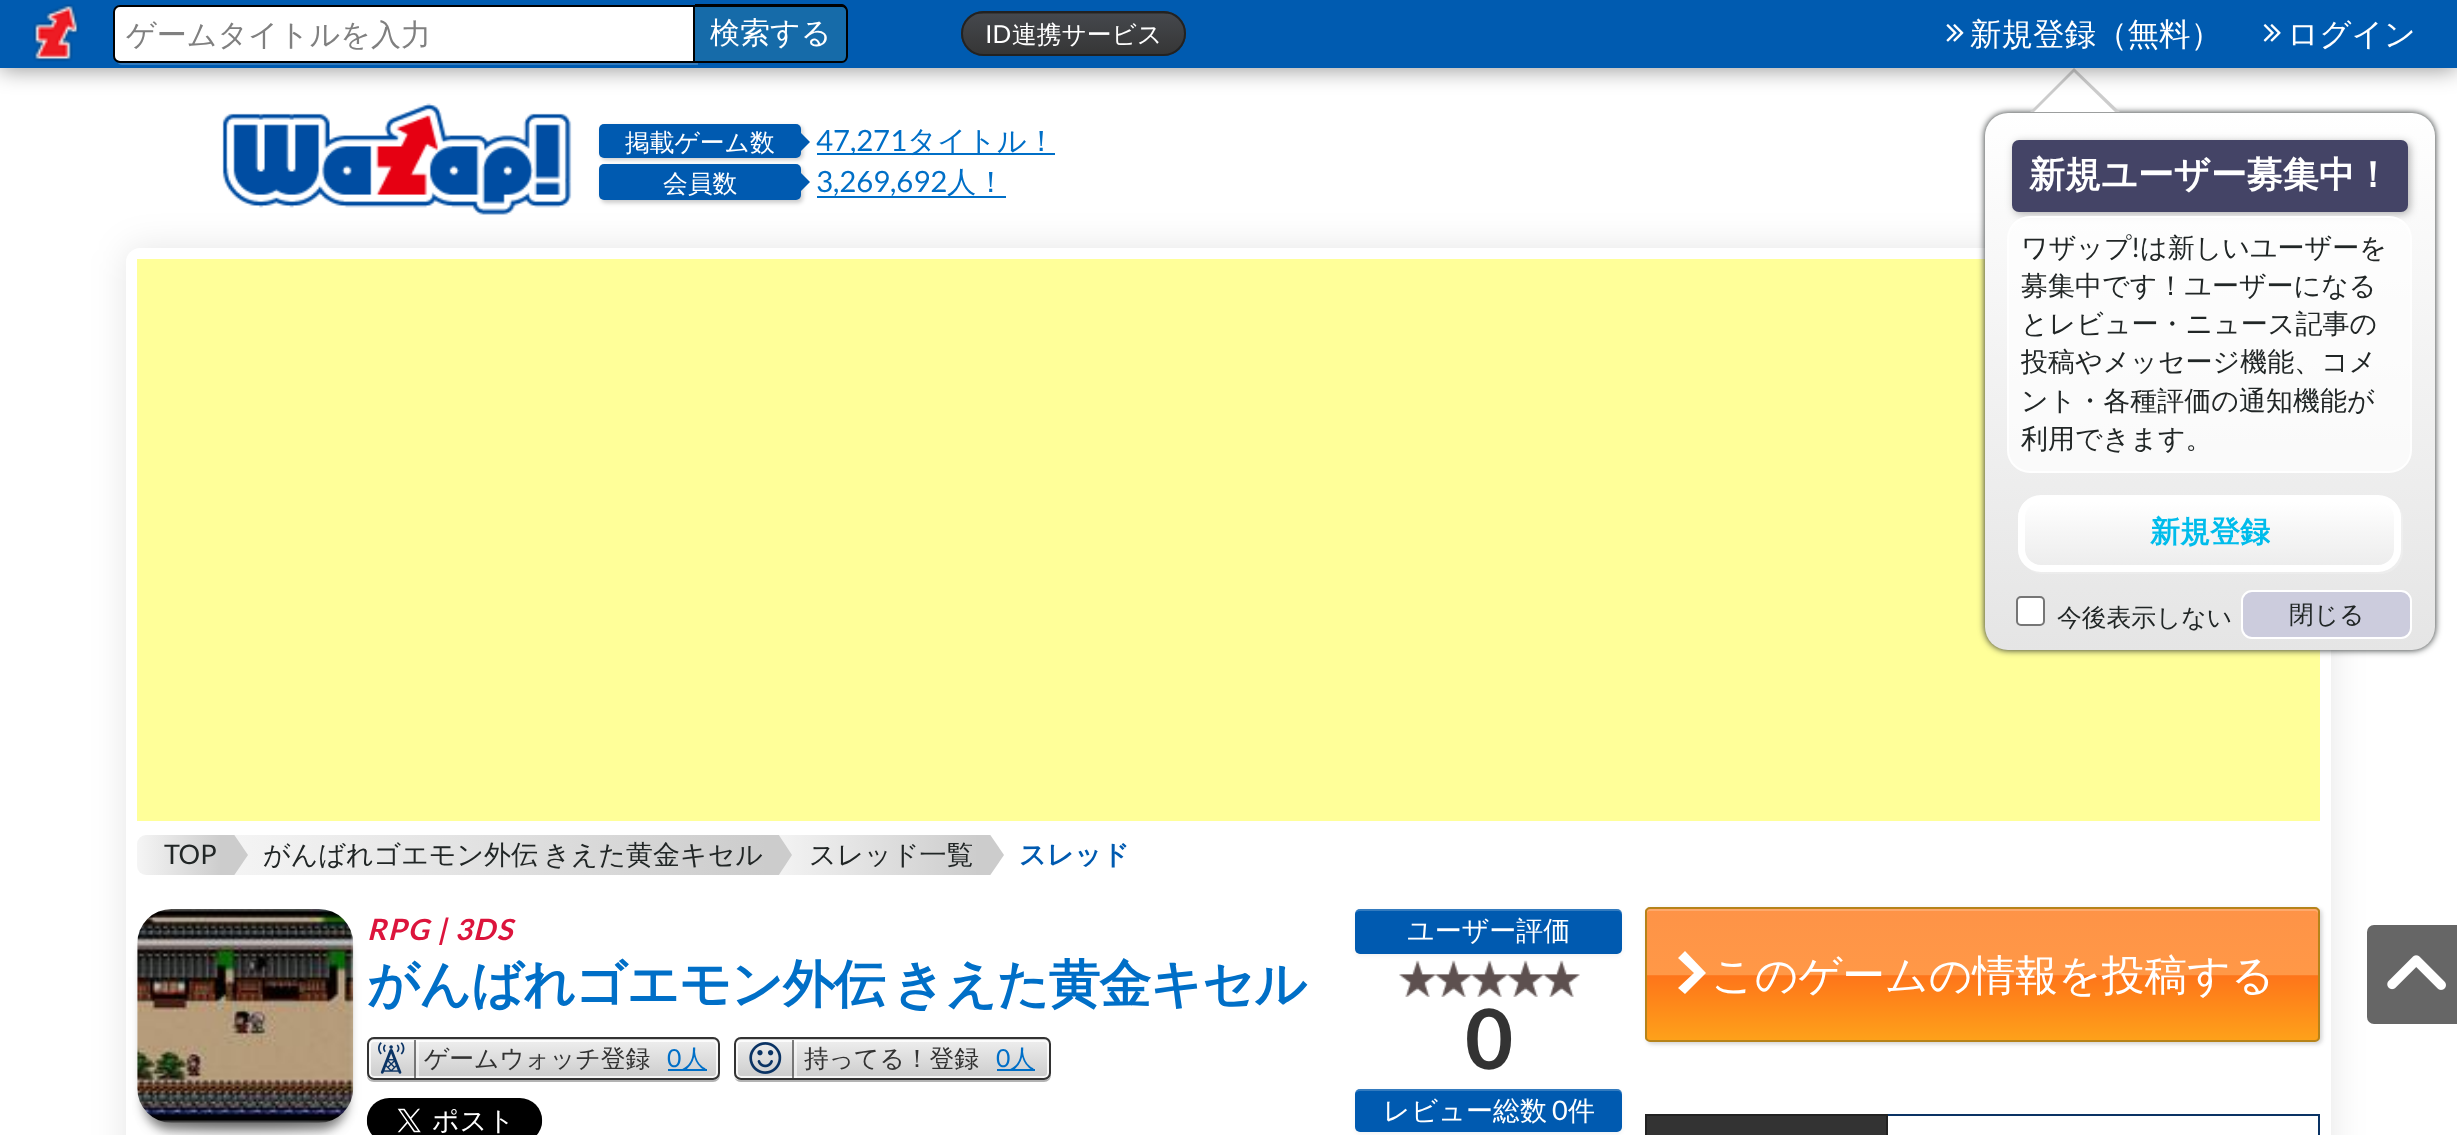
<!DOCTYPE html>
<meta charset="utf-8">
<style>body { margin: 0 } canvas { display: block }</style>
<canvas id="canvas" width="2457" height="1135"></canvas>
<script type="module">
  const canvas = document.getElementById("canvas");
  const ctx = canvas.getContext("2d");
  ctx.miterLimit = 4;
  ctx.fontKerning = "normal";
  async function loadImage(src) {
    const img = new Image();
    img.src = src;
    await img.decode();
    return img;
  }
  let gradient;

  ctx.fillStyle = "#ffffff";
  ctx.fillRect(0, 0, 2457, 1135);
  ctx.drawImage(await loadImage("img4.png"), 222, 103, 350, 112);
  ctx.fillStyle = "rgba(0, 0, 0, 0.2)";
  ctx.filter = "blur(2px)";
  ctx.beginPath();
  ctx.roundRect(601, 126, 202, 34, 5);
  ctx.fill();
  ctx.filter = "none";
  ctx.filter = "blur(2px)";
  ctx.beginPath();
  ctx.roundRect(601, 167, 202, 36, 5);
  ctx.fill();
  ctx.filter = "none";
  ctx.fillStyle = "#005ab0";
  ctx.beginPath();
  ctx.roundRect(599, 164, 202, 36, 5);
  ctx.fill();
  ctx.fillStyle = "#006fc7";
  ctx.fillRect(817, 196, 189, 2);
  ctx.save();
  ctx.beginPath();
  ctx.moveTo(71, 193);
  ctx.lineTo(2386, 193);
  ctx.lineTo(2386, 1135);
  ctx.lineTo(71, 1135);
  ctx.closePath();
  ctx.moveTo(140, 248);
  ctx.lineTo(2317, 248);
  ctx.bezierCurveTo(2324.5, 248, 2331, 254.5, 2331, 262);
  ctx.lineTo(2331, 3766);
  ctx.bezierCurveTo(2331, 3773.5, 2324.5, 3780, 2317, 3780);
  ctx.lineTo(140, 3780);
  ctx.bezierCurveTo(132.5, 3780, 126, 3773.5, 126, 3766);
  ctx.lineTo(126, 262);
  ctx.bezierCurveTo(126, 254.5, 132.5, 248, 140, 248);
  ctx.closePath();
  ctx.clip("evenodd");
  ctx.fillStyle = "rgba(0, 0, 0, 0.1)";
  ctx.filter = "blur(18px)";
  ctx.beginPath();
  ctx.roundRect(126, 248, 2205, 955, 14);
  ctx.fill();
  ctx.filter = "none";
  ctx.restore();
  ctx.fillStyle = "#ffff99";
  ctx.fillRect(137, 259, 2183, 562);
  ctx.fillStyle = "#212626";
  ctx.filter = "blur(3.5px)";
  ctx.beginPath();
  ctx.roundRect(1985, 113, 450, 537, 23);
  ctx.fill();
  ctx.filter = "none";
  ctx.fillStyle = "#cccccc";
  ctx.beginPath();
  ctx.moveTo(2120, 112);
  ctx.lineTo(2030, 112);
  ctx.lineTo(2074, 68);
  ctx.closePath();
  ctx.fill();
  ctx.fillStyle = "#ffffff";
  ctx.beginPath();
  ctx.moveTo(2115, 112);
  ctx.lineTo(2034, 112);
  ctx.lineTo(2074, 72);
  ctx.closePath();
  ctx.fill();
  ctx.fillStyle = "rgba(0, 0, 0, 0.4)";
  ctx.filter = "blur(11px)";
  ctx.beginPath();
  ctx.rect(0, 2, 2457, 68);
  ctx.fill();
  ctx.filter = "none";
  ctx.fillStyle = "#005bb0";
  ctx.fillRect(0, 0, 2457, 68);
  ctx.drawImage(await loadImage("img1.png"), 33, 4, 47, 58);
  ctx.fillStyle = "#337cc0";
  ctx.beginPath();
  ctx.moveTo(117, 62);
  ctx.bezierCurveTo(118, 64, 120, 65, 122, 65);
  ctx.lineTo(698, 65);
  ctx.lineTo(698, 7);
  ctx.lineTo(695, 7);
  ctx.lineTo(695, 63);
  ctx.lineTo(119, 63);
  ctx.closePath();
  ctx.fill();
  ctx.fillStyle = "#ffffff";
  ctx.beginPath();
  ctx.roundRect(114, 6, 580, 56, [6, 0, 0, 6]);
  ctx.fill();
  ctx.strokeStyle = "#000000";
  ctx.lineWidth = 2;
  ctx.stroke();
  ctx.font = "500 30px WenQuanYi Zen Hei";
  ctx.fillStyle = "#808080";
  ctx.fillText("ゲームタイトルを入力", 126, 45);
  ctx.fillStyle = "#166ba9";
  ctx.beginPath();
  ctx.roundRect(695, 5, 153, 58, [0, 7, 7, 0]);
  ctx.fill();
  ctx.fillStyle = "#000000";
  ctx.beginPath();
  ctx.moveTo(695, 4);
  ctx.lineTo(842, 4);
  ctx.bezierCurveTo(845, 4, 848, 8, 848, 11);
  ctx.lineTo(848, 56);
  ctx.bezierCurveTo(848, 60, 845, 63, 842, 63);
  ctx.lineTo(695, 63);
  ctx.closePath();
  ctx.moveTo(695, 7);
  ctx.lineTo(842, 7);
  ctx.bezierCurveTo(844, 7, 846, 9, 846, 11);
  ctx.lineTo(846, 56);
  ctx.bezierCurveTo(846, 59, 844, 61, 842, 61);
  ctx.lineTo(695, 61);
  ctx.closePath();
  ctx.fill("evenodd");
  ctx.fillStyle = "#ffffff";
  ctx.fillText("検索する", 710, 43);
  ctx.save();
  ctx.beginPath();
  ctx.roundRect(961, 11, 225, 45, 22.5);
  ctx.clip();
  gradient = ctx.createLinearGradient(1073, -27, 1073, 14);
  gradient.addColorStop(0, "#45484d");
  gradient.addColorStop(1, "#363636");
  ctx.fillStyle = gradient;
  ctx.fillRect(972, 11, 203, 3);
  gradient = ctx.createLinearGradient(1073, 13, 1073, 54);
  gradient.addColorStop(0, "#45484d");
  gradient.addColorStop(1, "#363636");
  ctx.fillStyle = gradient;
  ctx.fillRect(961, 14, 225, 40);
  ctx.restore();
  ctx.beginPath();
  ctx.roundRect(962, 12, 223, 43, 21.5);
  ctx.strokeStyle = "#222222";
  ctx.stroke();
  ctx.font = "24.75px Lato";
  ctx.fillText("ID", 985, 43);
  ctx.font = "500 24.75px WenQuanYi Zen Hei";
  ctx.fillText("連携サービス", 1012, 43);
  ctx.drawImage(await loadImage("img2.png"), 1946, 24, 18, 18);
  ctx.font = "500 31.5px WenQuanYi Zen Hei";
  ctx.fillText("新規登録（無料）", 1970, 45);
  ctx.drawImage(await loadImage("img3.png"), 2263, 24, 18, 18);
  ctx.fillText("ログイン", 2287, 45);
  ctx.fillStyle = "#005ab0";
  ctx.beginPath();
  ctx.roundRect(599, 124, 202, 34, 5);
  ctx.fill();
  ctx.font = "500 24.75px WenQuanYi Zen Hei";
  ctx.fillStyle = "#ffffff";
  ctx.fillText("掲載ゲーム数", 625, 151);
  ctx.fillStyle = "#005ab0";
  ctx.beginPath();
  ctx.moveTo(801, 151);
  ctx.lineTo(801, 133);
  ctx.lineTo(810, 142);
  ctx.closePath();
  ctx.fill();
  ctx.fillStyle = "#006fc7";
  ctx.fillRect(817, 153, 238, 2);
  ctx.font = "29.25px Lato";
  ctx.fillText("47,271", 816, 151);
  ctx.font = "500 29.25px WenQuanYi Zen Hei";
  ctx.fillText("タイトル！", 907, 151);
  ctx.font = "500 24.75px WenQuanYi Zen Hei";
  ctx.fillStyle = "#ffffff";
  ctx.fillText("会員数", 663, 192);
  ctx.fillStyle = "#005ab0";
  ctx.beginPath();
  ctx.moveTo(801, 191);
  ctx.lineTo(801, 173);
  ctx.lineTo(810, 182);
  ctx.closePath();
  ctx.fill();
  ctx.font = "29.25px Lato";
  ctx.fillStyle = "#006fc7";
  ctx.fillText("3,269,692", 816, 192);
  ctx.font = "500 29.25px WenQuanYi Zen Hei";
  ctx.fillText("人！", 947, 192);
  gradient = ctx.createLinearGradient(2210, 112, 2210, 650);
  gradient.addColorStop(0, "#ffffff");
  gradient.addColorStop(1, "#e5e5e5");
  ctx.fillStyle = gradient;
  ctx.beginPath();
  ctx.roundRect(1985, 113, 450, 537, 23);
  ctx.fill();
  ctx.fillStyle = "rgba(0, 0, 0, 0.3)";
  ctx.filter = "blur(4.5px)";
  ctx.beginPath();
  ctx.roundRect(2014, 142, 396, 72, 7);
  ctx.fill();
  ctx.filter = "none";
  ctx.fillStyle = "#444466";
  ctx.beginPath();
  ctx.roundRect(2012, 140, 396, 72, 7);
  ctx.fill();
  ctx.font = "bold 36px WenQuanYi Zen Hei";
  ctx.fillStyle = "#ffffff";
  ctx.fillText("新規ユーザー募集中！", 2029, 187);
  ctx.fillStyle = "rgba(255, 255, 255, 0.7)";
  ctx.beginPath();
  ctx.roundRect(2008, 217, 403, 255, 22);
  ctx.fill();
  ctx.strokeStyle = "#ffffff";
  ctx.stroke();
  ctx.font = "500 27px WenQuanYi Zen Hei";
  ctx.fillStyle = "#212626";
  ctx.fillText("ワザップ", 2021, 257);
  ctx.font = "27px Lato";
  ctx.fillText("!", 2131, 257);
  ctx.font = "500 27px WenQuanYi Zen Hei";
  ctx.fillText("は新しいユーザーを", 2140, 257);
  ctx.fillText("募集中です！ユーザーになる", 2021, 295);
  ctx.fillText("とレビュー・ニュース記事の", 2021, 333);
  ctx.fillText("投稿やメッセージ機能、コメ", 2021, 371);
  ctx.fillText("ント・各種評価の通知機能が", 2021, 410);
  ctx.fillText("利用できます。", 2021, 448);
  ctx.fillStyle = "rgba(255, 255, 255, 0.2)";
  ctx.beginPath();
  ctx.moveTo(2028, 568);
  ctx.bezierCurveTo(2032, 572, 2038, 574, 2044, 574);
  ctx.lineTo(2380, 574);
  ctx.bezierCurveTo(2393, 574, 2403, 564, 2403, 551);
  ctx.lineTo(2403, 520);
  ctx.bezierCurveTo(2403, 513, 2400, 507, 2395, 503);
  ctx.bezierCurveTo(2399, 507, 2401, 512, 2401, 518);
  ctx.lineTo(2401, 549);
  ctx.bezierCurveTo(2401, 561, 2391, 572, 2378, 572);
  ctx.lineTo(2041, 572);
  ctx.bezierCurveTo(2036, 572, 2032, 570, 2028, 568);
  ctx.closePath();
  ctx.fill();
  ctx.save();
  ctx.beginPath();
  ctx.roundRect(2018, 495, 383, 77, 23);
  ctx.clip();
  gradient = ctx.createLinearGradient(2210, 502, 2210, 565);
  gradient.addColorStop(0, "#ffffff");
  gradient.addColorStop(0.47, "#f6f6f6");
  gradient.addColorStop(1, "#ededed");
  ctx.fillStyle = gradient;
  ctx.fillRect(2018, 502, 383, 63);
  ctx.restore();
  ctx.beginPath();
  ctx.roundRect(2021.5, 498.5, 376, 70, 19.5);
  ctx.lineWidth = 7;
  ctx.stroke();
  ctx.font = "bold 30px WenQuanYi Zen Hei";
  ctx.fillStyle = "#00bceb";
  ctx.fillText("新規登録", 2150, 542);
  ctx.fillStyle = "#ffffff";
  ctx.beginPath();
  ctx.roundRect(2017, 597, 27, 28, 4);
  ctx.fill();
  ctx.strokeStyle = "#767676";
  ctx.lineWidth = 2;
  ctx.stroke();
  ctx.font = "500 24.75px WenQuanYi Zen Hei";
  ctx.fillStyle = "#212626";
  ctx.fillText("今後表示しない", 2057, 626);
  ctx.fillStyle = "#ccccdd";
  ctx.beginPath();
  ctx.roundRect(2242, 591, 169, 47, 10);
  ctx.fill();
  ctx.strokeStyle = "#ffffff";
  ctx.stroke();
  ctx.fillStyle = "#212626";
  ctx.fillText("閉じる", 2289, 623);
  gradient = ctx.createLinearGradient(137, 855, 223, 855);
  gradient.addColorStop(0, "#f5f5f5");
  gradient.addColorStop(1, "#cccccc");
  ctx.fillStyle = gradient;
  ctx.beginPath();
  ctx.roundRect(137, 835, 86, 40, [9, 0, 0, 9]);
  ctx.fill();
  ctx.font = "27px Lato";
  ctx.fillStyle = "#212626";
  ctx.fillText("TOP", 164, 864);
  gradient = ctx.createLinearGradient(223, 855, 767, 855);
  gradient.addColorStop(0, "#f5f5f5");
  gradient.addColorStop(1, "#cccccc");
  ctx.fillStyle = gradient;
  ctx.fillRect(234, 835, 531, 40);
  ctx.save();
  ctx.beginPath();
  ctx.rect(137, 835, 2183, 40);
  ctx.clip();
  ctx.fillStyle = "#cccccc";
  ctx.beginPath();
  ctx.moveTo(220, 896);
  ctx.lineTo(220, 814);
  ctx.lineTo(248, 855);
  ctx.closePath();
  ctx.fill();
  ctx.restore();
  ctx.wordSpacing = "-3px";
  ctx.font = "500 27px WenQuanYi Zen Hei";
  ctx.fillStyle = "#212626";
  ctx.fillText("がんばれゴエモン外伝 きえた黄金キセル", 263, 864);
  gradient = ctx.createLinearGradient(767, 855, 979, 855);
  gradient.addColorStop(0, "#f5f5f5");
  gradient.addColorStop(1, "#cccccc");
  ctx.fillStyle = gradient;
  ctx.fillRect(778, 835, 198, 40);
  ctx.save();
  ctx.beginPath();
  ctx.rect(137, 835, 2183, 40);
  ctx.clip();
  ctx.fillStyle = "#cccccc";
  ctx.beginPath();
  ctx.moveTo(765, 896);
  ctx.lineTo(765, 814);
  ctx.lineTo(792, 855);
  ctx.closePath();
  ctx.fill();
  ctx.restore();
  ctx.wordSpacing = "0px";
  ctx.fillStyle = "#212626";
  ctx.fillText("スレッド一覧", 809, 864);
  ctx.save();
  ctx.beginPath();
  ctx.rect(137, 835, 2183, 40);
  ctx.clip();
  ctx.fillStyle = "#cccccc";
  ctx.beginPath();
  ctx.moveTo(976, 896);
  ctx.lineTo(976, 814);
  ctx.lineTo(1004, 855);
  ctx.closePath();
  ctx.fill();
  ctx.restore();
  ctx.font = "bold 27px WenQuanYi Zen Hei";
  ctx.fillStyle = "#005ab0";
  ctx.fillText("スレッド", 1019, 864);
  ctx.fillStyle = "#b3b3b3";
  ctx.beginPath();
  ctx.moveTo(367, 1076);
  ctx.bezierCurveTo(367, 1079, 370, 1082, 374, 1082);
  ctx.lineTo(713, 1082);
  ctx.bezierCurveTo(717, 1082, 720, 1079, 720, 1075);
  ctx.lineTo(720, 1074);
  ctx.bezierCurveTo(720, 1077, 717, 1080, 714, 1080);
  ctx.lineTo(373, 1080);
  ctx.bezierCurveTo(370, 1080, 368, 1078, 367, 1076);
  ctx.closePath();
  ctx.fill();
  ctx.save();
  ctx.beginPath();
  ctx.roundRect(367, 1037, 353, 43, 7);
  ctx.clip();
  gradient = ctx.createLinearGradient(543, 1001, 543, 1040);
  gradient.addColorStop(0, "#eeeeee");
  gradient.addColorStop(1, "#cccccc");
  ctx.fillStyle = gradient;
  ctx.fillRect(367, 1037, 353, 3);
  gradient = ctx.createLinearGradient(543, 1040, 543, 1078);
  gradient.addColorStop(0, "#eeeeee");
  gradient.addColorStop(1, "#cccccc");
  ctx.fillStyle = gradient;
  ctx.fillRect(367, 1040, 353, 38);
  ctx.restore();
  ctx.beginPath();
  ctx.roundRect(370, 1041, 347, 36, 4);
  ctx.strokeStyle = "rgba(255, 255, 255, 0.8)";
  ctx.stroke();
  ctx.beginPath();
  ctx.roundRect(368, 1038, 351, 41, 6);
  ctx.strokeStyle = "#333333";
  ctx.stroke();
  ctx.drawImage(await loadImage("img8.png"), 366, 1098, 177, 37);
  ctx.fillStyle = "#000000";
  ctx.filter = "blur(22.5px)";
  ctx.beginPath();
  ctx.rect(182, 977, 126, 123);
  ctx.fill();
  ctx.filter = "none";
  ctx.fillStyle = "rgba(0, 0, 0, 0.5)";
  ctx.filter = "blur(5.5px)";
  ctx.beginPath();
  ctx.roundRect(144, 929, 203, 201, 27);
  ctx.fill();
  ctx.filter = "none";
  ctx.drawImage(await loadImage("img5.png"), 137, 909, 217, 214);
  ctx.letterSpacing = "1.5px";
  ctx.font = "italic bold 29.25px Lato";
  ctx.fillStyle = "#dc143c";
  ctx.fillText("RPG | 3DS", 367, 940);
  ctx.letterSpacing = "-1px";
  ctx.wordSpacing = "-6px";
  ctx.font = "bold 51.75px WenQuanYi Zen Hei";
  ctx.fillStyle = "#006fc7";
  ctx.fillText("がんばれゴエモン外伝 きえた黄金キセル", 367, 1002);
  ctx.fillStyle = "rgba(255, 255, 255, 0.5)";
  ctx.beginPath();
  ctx.moveTo(376, 1078);
  ctx.lineTo(419, 1078);
  ctx.lineTo(419, 1040);
  ctx.lineTo(414, 1040);
  ctx.lineTo(414, 1078);
  ctx.closePath();
  ctx.fill();
  ctx.fillStyle = "rgba(0, 0, 0, 0.5)";
  ctx.beginPath();
  ctx.moveTo(373, 1078);
  ctx.lineTo(416, 1078);
  ctx.lineTo(416, 1040);
  ctx.lineTo(414, 1040);
  ctx.lineTo(414, 1078);
  ctx.closePath();
  ctx.fill();
  ctx.drawImage(await loadImage("img6.png"), 378, 1042, 27, 32);
  ctx.letterSpacing = "0px";
  ctx.wordSpacing = "0px";
  ctx.font = "500 24.75px WenQuanYi Zen Hei";
  ctx.fillStyle = "#333333";
  ctx.fillText("ゲームウォッチ登録", 424, 1067);
  ctx.font = "24.75px Lato";
  ctx.fillStyle = "#006fc7";
  ctx.fillText("0", 667, 1067);
  ctx.fillRect(668, 1069, 39, 2);
  ctx.font = "500 24.75px WenQuanYi Zen Hei";
  ctx.fillText("人", 682, 1067);
  ctx.fillStyle = "#b3b3b3";
  ctx.beginPath();
  ctx.moveTo(734, 1077);
  ctx.bezierCurveTo(735, 1080, 738, 1082, 741, 1082);
  ctx.lineTo(1044, 1082);
  ctx.bezierCurveTo(1048, 1082, 1051, 1079, 1051, 1075);
  ctx.lineTo(1051, 1045);
  ctx.lineTo(1051, 1074);
  ctx.bezierCurveTo(1051, 1077, 1048, 1080, 1045, 1080);
  ctx.lineTo(740, 1080);
  ctx.bezierCurveTo(737, 1080, 735, 1079, 734, 1077);
  ctx.closePath();
  ctx.fill();
  ctx.save();
  ctx.beginPath();
  ctx.roundRect(734, 1037, 317, 43, 7);
  ctx.clip();
  gradient = ctx.createLinearGradient(892, 1001, 892, 1040);
  gradient.addColorStop(0, "#eeeeee");
  gradient.addColorStop(1, "#cccccc");
  ctx.fillStyle = gradient;
  ctx.fillRect(734, 1037, 317, 3);
  gradient = ctx.createLinearGradient(892, 1040, 892, 1078);
  gradient.addColorStop(0, "#eeeeee");
  gradient.addColorStop(1, "#cccccc");
  ctx.fillStyle = gradient;
  ctx.fillRect(734, 1040, 317, 38);
  ctx.restore();
  ctx.beginPath();
  ctx.roundRect(737, 1041, 311, 36, 4);
  ctx.strokeStyle = "rgba(255, 255, 255, 0.8)";
  ctx.stroke();
  ctx.beginPath();
  ctx.roundRect(735, 1038, 315, 41, 6);
  ctx.strokeStyle = "#333333";
  ctx.stroke();
  ctx.fillStyle = "rgba(255, 255, 255, 0.5)";
  ctx.beginPath();
  ctx.moveTo(745, 1078);
  ctx.lineTo(797, 1078);
  ctx.lineTo(797, 1040);
  ctx.lineTo(792, 1040);
  ctx.lineTo(792, 1078);
  ctx.closePath();
  ctx.fill();
  ctx.fillStyle = "rgba(0, 0, 0, 0.5)";
  ctx.beginPath();
  ctx.moveTo(742, 1078);
  ctx.lineTo(794, 1078);
  ctx.lineTo(794, 1040);
  ctx.lineTo(792, 1040);
  ctx.lineTo(792, 1078);
  ctx.closePath();
  ctx.fill();
  ctx.drawImage(await loadImage("img7.png"), 749, 1042, 33, 32);
  ctx.fillStyle = "#333333";
  ctx.fillText("持ってる！登録", 804, 1067);
  ctx.font = "24.75px Lato";
  ctx.fillStyle = "#006fc7";
  ctx.fillText("0", 996, 1067);
  ctx.fillRect(997, 1069, 38, 2);
  ctx.font = "500 24.75px WenQuanYi Zen Hei";
  ctx.fillText("人", 1010, 1067);
  ctx.fillStyle = "rgba(0, 0, 0, 0.05)";
  ctx.filter = "blur(2px)";
  ctx.beginPath();
  ctx.roundRect(1355, 911, 267, 45, 5);
  ctx.fill();
  ctx.filter = "none";
  ctx.fillStyle = "#005ab0";
  ctx.beginPath();
  ctx.roundRect(1355, 909, 267, 45, 5);
  ctx.fill();
  ctx.fillStyle = "rgba(255, 255, 255, 0.2)";
  ctx.beginPath();
  ctx.moveTo(1359, 911);
  ctx.lineTo(1618, 911);
  ctx.bezierCurveTo(1620, 911, 1622, 913, 1622, 916);
  ctx.lineTo(1622, 914);
  ctx.bezierCurveTo(1622, 911, 1620, 909, 1617, 909);
  ctx.lineTo(1360, 909);
  ctx.bezierCurveTo(1358, 909, 1356, 911, 1355, 913);
  ctx.bezierCurveTo(1356, 912, 1358, 911, 1359, 911);
  ctx.closePath();
  ctx.fill();
  ctx.font = "500 27px WenQuanYi Zen Hei";
  ctx.fillStyle = "#ffffff";
  ctx.fillText("ユーザー評価", 1407, 940);
  ctx.drawImage(await loadImage("img9.png"), 1399, 960, 37, 37);
  ctx.drawImage(await loadImage("img10.png"), 1435, 960, 37, 37);
  ctx.drawImage(await loadImage("img10.png"), 1471, 960, 37, 37);
  ctx.drawImage(await loadImage("img11.png"), 1507, 960, 37, 37);
  ctx.drawImage(await loadImage("img12.png"), 1543, 960, 37, 37);
  ctx.font = "bold 83px Lato";
  ctx.fillStyle = "#333333";
  ctx.fillText("0", 1465, 1069);
  ctx.fillStyle = "rgba(0, 0, 0, 0.05)";
  ctx.filter = "blur(2px)";
  ctx.beginPath();
  ctx.roundRect(1355, 1091, 267, 43, 5);
  ctx.fill();
  ctx.filter = "none";
  ctx.fillStyle = "#005ab0";
  ctx.beginPath();
  ctx.roundRect(1355, 1089, 267, 43, 5);
  ctx.fill();
  ctx.fillStyle = "rgba(255, 255, 255, 0.2)";
  ctx.beginPath();
  ctx.moveTo(1359, 1091);
  ctx.lineTo(1618, 1091);
  ctx.bezierCurveTo(1620, 1091, 1622, 1093, 1622, 1096);
  ctx.lineTo(1622, 1094);
  ctx.bezierCurveTo(1622, 1091, 1620, 1089, 1617, 1089);
  ctx.lineTo(1360, 1089);
  ctx.bezierCurveTo(1358, 1089, 1356, 1091, 1355, 1093);
  ctx.bezierCurveTo(1356, 1092, 1358, 1091, 1359, 1091);
  ctx.closePath();
  ctx.fill();
  ctx.font = "500 27px WenQuanYi Zen Hei";
  ctx.fillStyle = "#ffffff";
  ctx.fillText("レビュー総数", 1383, 1120);
  ctx.font = "27px Lato";
  ctx.fillText("0", 1552, 1120);
  ctx.font = "500 27px WenQuanYi Zen Hei";
  ctx.fillText("件", 1568, 1120);
  ctx.fillStyle = "rgba(26, 26, 26, 0.2)";
  ctx.filter = "blur(2px)";
  ctx.beginPath();
  ctx.roundRect(1647, 909, 675, 135, 5);
  ctx.fill();
  ctx.filter = "none";
  ctx.save();
  ctx.beginPath();
  ctx.roundRect(1645, 907, 675, 135, 5);
  ctx.clip();
  gradient = ctx.createLinearGradient(1982, 909, 1982, 1040);
  gradient.addColorStop(0, "#fe9347");
  gradient.addColorStop(0.5, "#ff9847");
  gradient.addColorStop(0.51, "#fe751a");
  gradient.addColorStop(1, "#fea11a");
  ctx.fillStyle = gradient;
  ctx.fillRect(1645, 909, 675, 131);
  ctx.restore();
  ctx.fillStyle = "#fea96c";
  ctx.beginPath();
  ctx.moveTo(1649, 911);
  ctx.lineTo(2315, 911);
  ctx.bezierCurveTo(2316, 911, 2318, 912, 2318, 914);
  ctx.lineTo(2318, 911);
  ctx.bezierCurveTo(2318, 910, 2317, 909, 2316, 909);
  ctx.lineTo(1649, 909);
  ctx.bezierCurveTo(1648, 909, 1647, 910, 1647, 911);
  ctx.lineTo(1647, 914);
  ctx.bezierCurveTo(1647, 912, 1648, 911, 1649, 911);
  ctx.closePath();
  ctx.fill();
  ctx.beginPath();
  ctx.roundRect(1646, 908, 673, 133, 4);
  ctx.strokeStyle = "#b6831a";
  ctx.stroke();
  ctx.fillStyle = "#ffffff";
  ctx.beginPath();
  ctx.moveTo(1678, 988);
  ctx.lineTo(1694, 973);
  ctx.lineTo(1678, 958);
  ctx.lineTo(1685, 951);
  ctx.lineTo(1706, 973);
  ctx.lineTo(1685, 994);
  ctx.closePath();
  ctx.fill();
  ctx.font = "500 42.75px WenQuanYi Zen Hei";
  ctx.fillText("このゲームの情報を投稿する", 1711, 990);
  ctx.fillStyle = "#333333";
  ctx.fillRect(1647, 1116, 239, 19);
  ctx.fillStyle = "#0a3364";
  ctx.fillRect(1886, 1114, 434, 2);
  ctx.fillStyle = "#222222";
  ctx.fillRect(1645, 1114, 243, 2);
  ctx.fillRect(1886, 1114, 2, 21);
  ctx.fillRect(1645, 1114, 2, 21);
  ctx.fillStyle = "#0a3364";
  ctx.fillRect(2318, 1114, 2, 21);
  ctx.fillStyle = "#666666";
  ctx.beginPath();
  ctx.roundRect(2367, 925, 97, 99, 7);
  ctx.fill();
  ctx.drawImage(await loadImage("img13.png"), 2387, 955, 59, 35);
</script>
